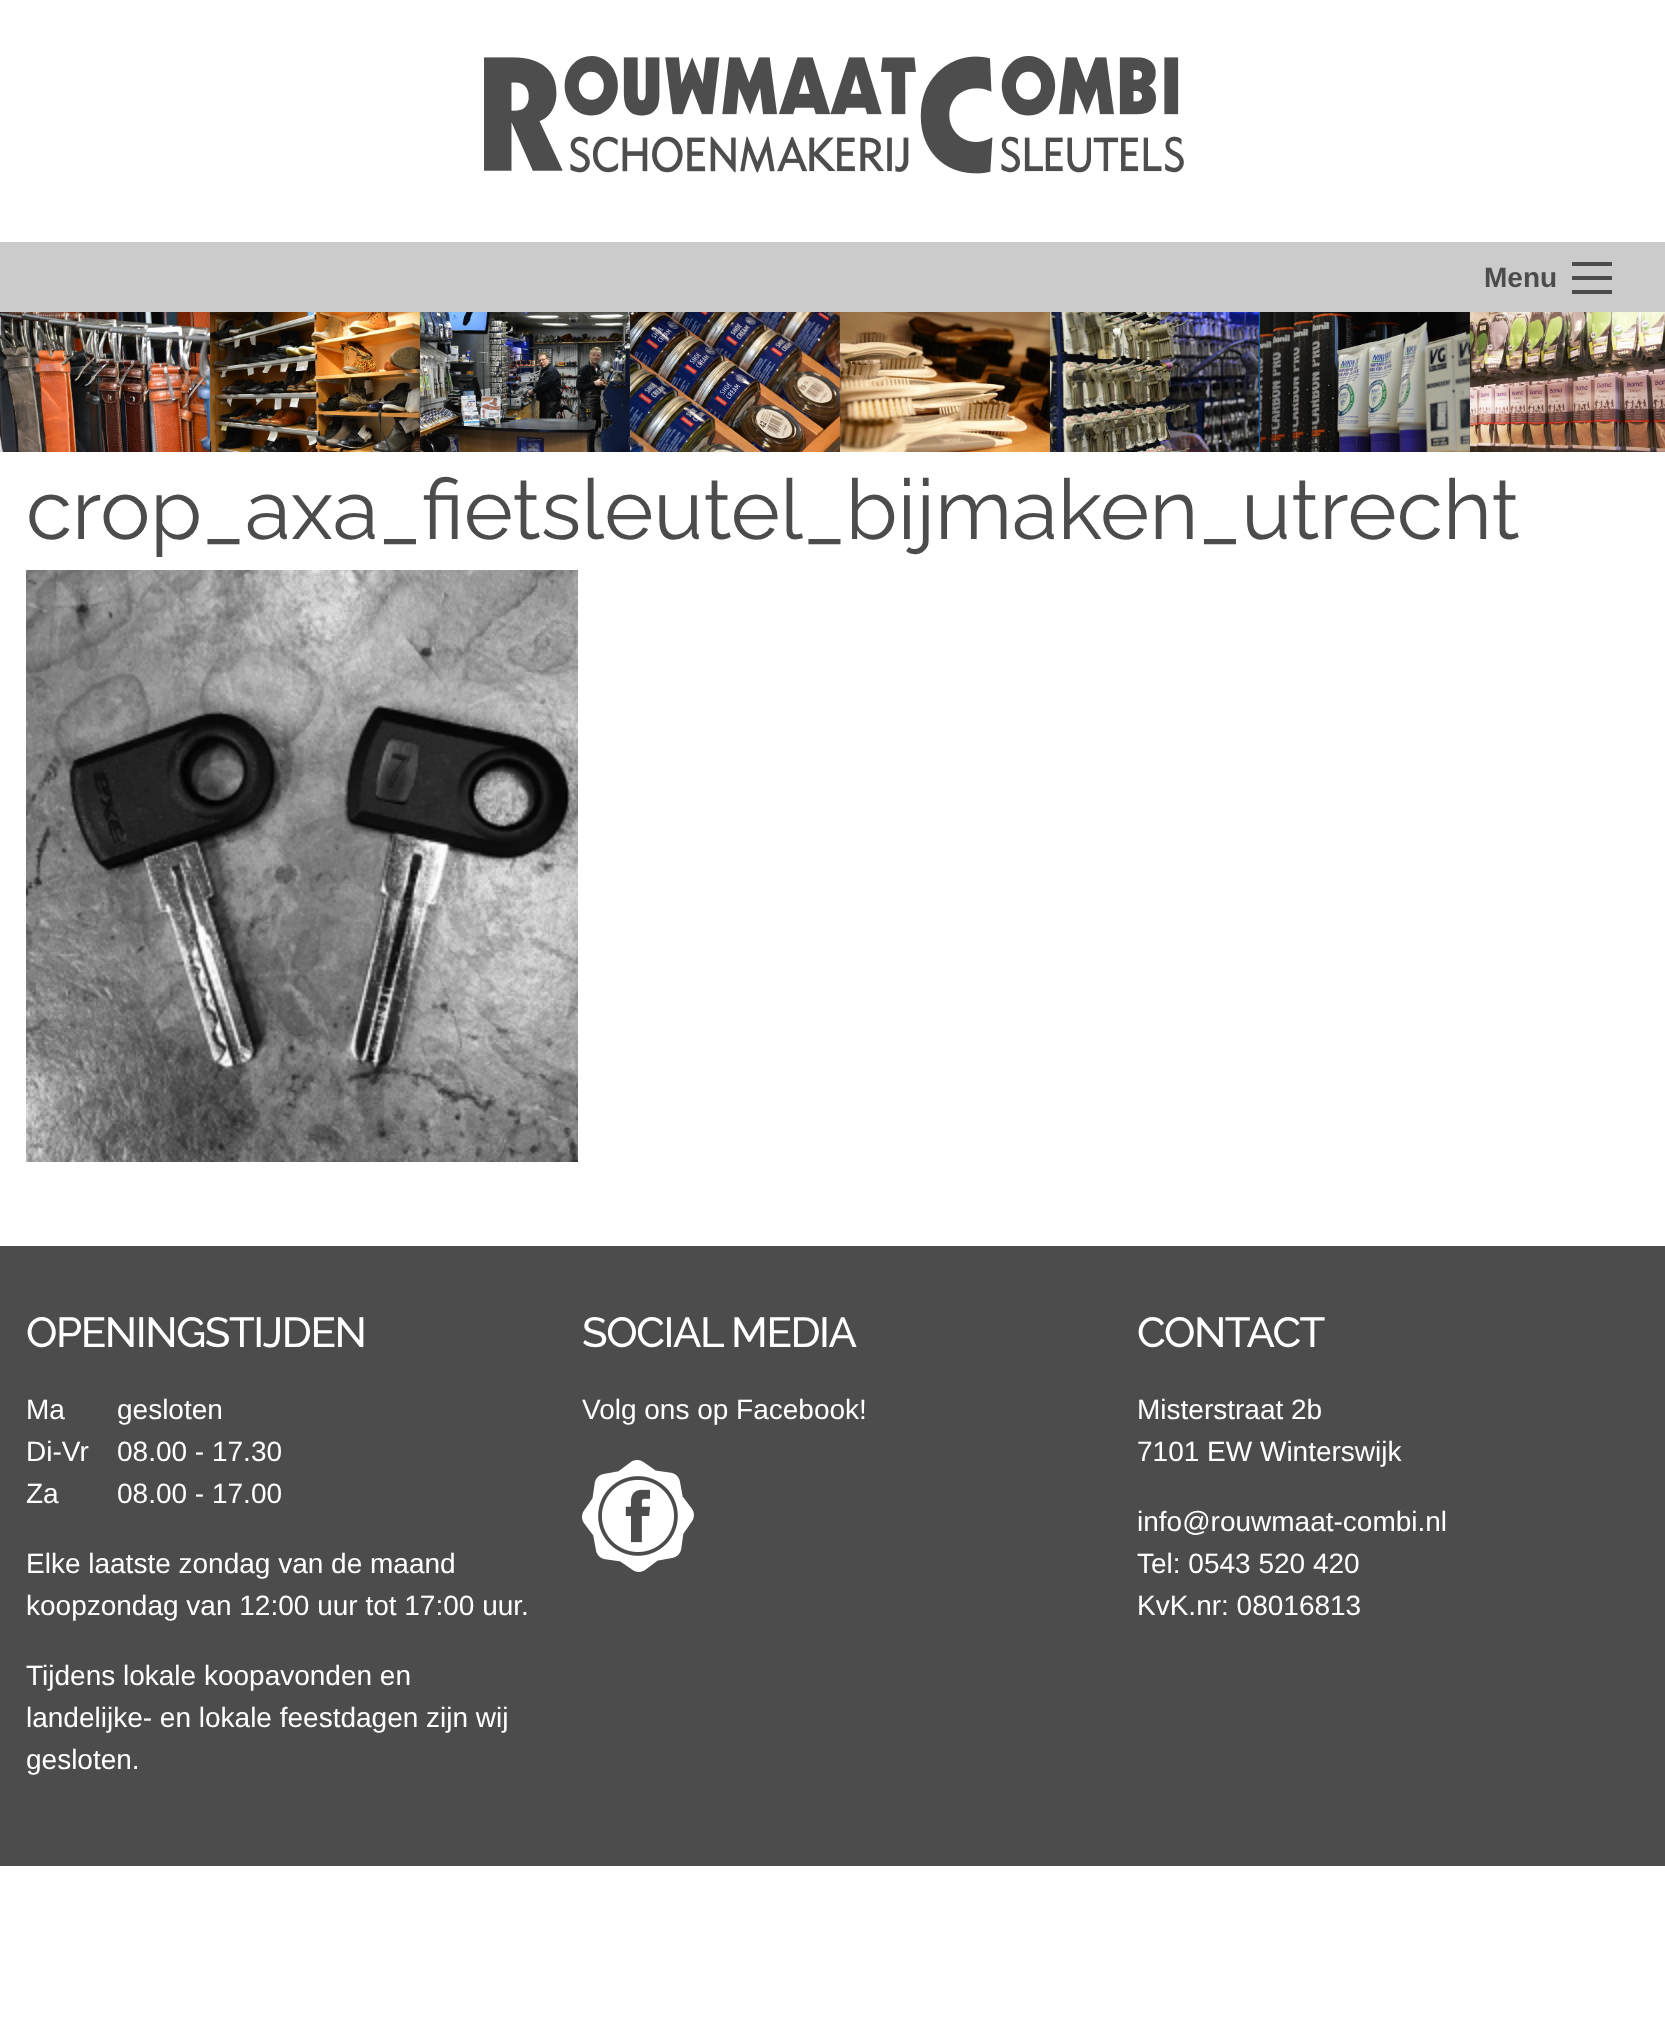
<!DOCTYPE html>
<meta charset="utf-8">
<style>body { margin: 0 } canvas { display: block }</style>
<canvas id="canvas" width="1665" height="2038"></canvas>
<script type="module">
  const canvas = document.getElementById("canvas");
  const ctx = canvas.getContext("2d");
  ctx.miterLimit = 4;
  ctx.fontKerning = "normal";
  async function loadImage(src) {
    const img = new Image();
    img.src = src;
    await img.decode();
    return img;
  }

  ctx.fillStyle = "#ffffff";
  ctx.fillRect(0, 0, 1665, 2038);
  ctx.drawImage(await loadImage("img1.png"), 484, 56, 700, 118);
  ctx.fillStyle = "#cbcbcb";
  ctx.fillRect(0, 242, 1665, 70);
  ctx.font = "bold 28px Liberation Sans";
  ctx.fillStyle = "#4c4c4c";
  ctx.fillText("Menu", 1484, 287);
  ctx.fillRect(1572, 290, 40, 4);
  ctx.fillRect(1572, 276, 40, 4);
  ctx.fillRect(1572, 262, 40, 4);
  ctx.drawImage(await loadImage("img2.png"), 0, 312, 210, 140);
  ctx.drawImage(await loadImage("img3.png"), 210, 312, 210, 140);
  ctx.drawImage(await loadImage("img4.png"), 420, 312, 210, 140);
  ctx.drawImage(await loadImage("img5.png"), 630, 312, 210, 140);
  ctx.drawImage(await loadImage("img6.png"), 840, 312, 210, 140);
  ctx.drawImage(await loadImage("img7.png"), 1050, 312, 210, 140);
  ctx.drawImage(await loadImage("img8.png"), 1260, 312, 210, 140);
  ctx.drawImage(await loadImage("img9.png"), 1470, 312, 195, 140);
  ctx.font = "84px Raleway";
  ctx.fillText("crop_axa_fietsleutel_bijmaken_utrecht", 26, 539);
  ctx.drawImage(await loadImage("img10.png"), 26, 570, 552, 592);
  ctx.fillRect(0, 1246, 1665, 620);
  ctx.letterSpacing = "-1.4px";
  ctx.font = "500 42px Raleway";
  ctx.fillStyle = "#ffffff";
  ctx.fillText("OPENINGSTIJDEN", 26, 1347);
  ctx.letterSpacing = "0px";
  ctx.font = "28px Liberation Sans";
  ctx.fillText("Ma", 26, 1419);
  ctx.fillText("gesloten", 117, 1419);
  ctx.fillText("Di-Vr", 26, 1461);
  ctx.fillText("08.00 - 17.30", 117, 1461);
  ctx.fillText("Za", 26, 1503);
  ctx.fillText("08.00 - 17.00", 117, 1503);
  ctx.fillText("Elke laatste zondag van de maand", 26, 1573);
  ctx.fillText("koopzondag van 12:00 uur tot 17:00 uur.", 26, 1615);
  ctx.fillText("Tijdens lokale koopavonden en", 26, 1685);
  ctx.fillText("landelijke- en lokale feestdagen zijn wij", 26, 1727);
  ctx.fillText("gesloten.", 26, 1769);
  ctx.letterSpacing = "-1.4px";
  ctx.font = "500 42px Raleway";
  ctx.fillText("SOCIAL MEDIA", 582, 1347);
  ctx.letterSpacing = "0px";
  ctx.font = "28px Liberation Sans";
  ctx.fillText("Volg ons op Facebook!", 582, 1419);
  ctx.drawImage(await loadImage("img11.png"), 582, 1460, 112, 112);
  ctx.letterSpacing = "-1.4px";
  ctx.font = "500 42px Raleway";
  ctx.fillText("CONTACT", 1137, 1347);
  ctx.letterSpacing = "0px";
  ctx.font = "28px Liberation Sans";
  ctx.fillText("Misterstraat 2b", 1137, 1419);
  ctx.fillText("7101 EW Winterswijk", 1137, 1461);
  ctx.fillText("info@rouwmaat-combi.nl", 1137, 1531);
  ctx.fillText("Tel: 0543 520 420", 1137, 1573);
  ctx.fillText("KvK.nr: 08016813", 1137, 1615);
</script>
